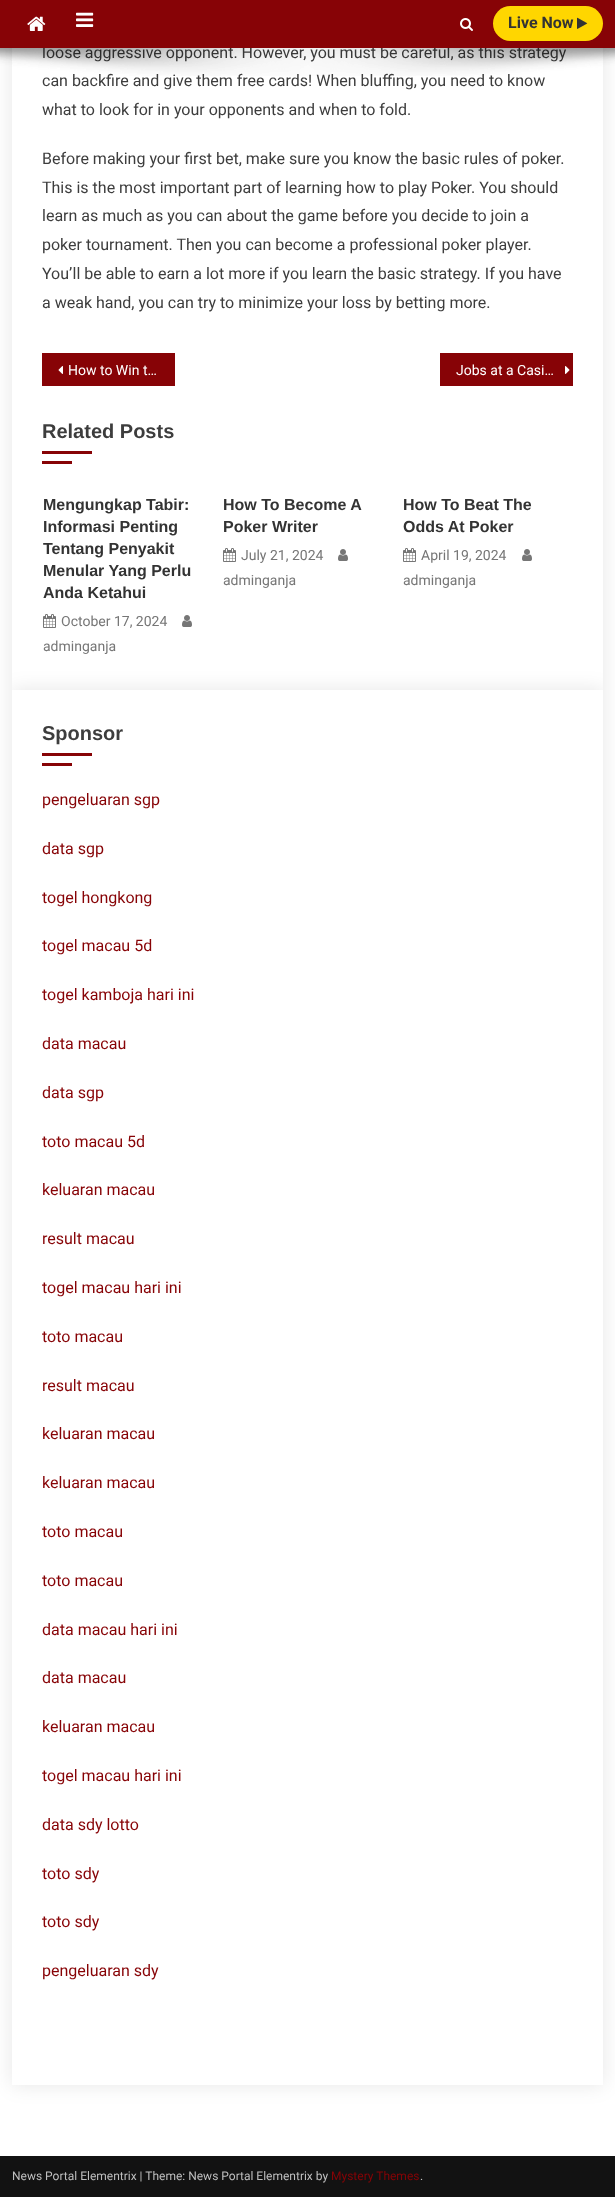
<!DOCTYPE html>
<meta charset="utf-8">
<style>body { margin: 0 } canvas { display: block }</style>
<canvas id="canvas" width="615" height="2197"></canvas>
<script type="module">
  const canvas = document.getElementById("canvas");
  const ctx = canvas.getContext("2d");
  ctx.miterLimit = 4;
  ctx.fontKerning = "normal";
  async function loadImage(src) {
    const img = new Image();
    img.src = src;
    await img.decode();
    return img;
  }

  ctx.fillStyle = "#ffffff";
  ctx.fillRect(0, 0, 615, 2197);
  ctx.save();
  ctx.beginPath();
  ctx.moveTo(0, 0);
  ctx.lineTo(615, 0);
  ctx.lineTo(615, 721);
  ctx.lineTo(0, 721);
  ctx.closePath();
  ctx.moveTo(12, -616);
  ctx.lineTo(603, -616);
  ctx.lineTo(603, 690);
  ctx.lineTo(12, 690);
  ctx.closePath();
  ctx.clip("evenodd");
  ctx.fillStyle = "rgba(0, 0, 0, 0.1)";
  ctx.filter = "blur(10px)";
  ctx.beginPath();
  ctx.rect(12, -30, 591, 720);
  ctx.fill();
  ctx.filter = "none";
  ctx.restore();
  ctx.font = "16px Roboto";
  ctx.fillStyle = "#3d3d3d";
  ctx.fillText("loose aggressive opponent. However, you must be careful, as this strategy", 42, 58);
  ctx.fillStyle = "#870306";
  ctx.fillRect(0, 0, 615, 48);
  ctx.drawImage(await loadImage("img1.png"), 27, 16, 19, 15);
  ctx.drawImage(await loadImage("img2.png"), 76, 12, 18, 15);
  ctx.drawImage(await loadImage("img3.png"), 460, 18, 13, 13);
  ctx.fillStyle = "#ffd600";
  ctx.beginPath();
  ctx.roundRect(493, 6, 110, 35, 17.5);
  ctx.fill();
  ctx.font = "bold 16px Roboto";
  ctx.fillStyle = "#333333";
  ctx.fillText("Live Now", 508, 28);
  ctx.drawImage(await loadImage("img4.png"), 577, 17, 11, 12);
  ctx.font = "16px Roboto";
  ctx.fillStyle = "#3d3d3d";
  ctx.fillText("can backfire and give them free cards! When bluffing, you need to know", 42, 86);
  ctx.drawImage(await loadImage("img5.png"), 0, 48, 615, 28);
  ctx.fillText("what to look for in your opponents and when to fold.", 42, 115);
  ctx.fillText("Before making your first bet, make sure you know the basic rules of poker.", 42, 164);
  ctx.fillText("This is the most important part of learning how to play Poker. You should", 42, 193);
  ctx.fillText("learn as much as you can about the game before you decide to join a", 42, 221);
  ctx.fillText("poker tournament. Then you can become a professional poker player.", 42, 250);
  ctx.fillText("You’ll be able to earn a lot more if you learn the basic strategy. If you have", 42, 279);
  ctx.fillText("a weak hand, you can try to minimize your loss by betting more.", 42, 308);
  ctx.fillStyle = "#870306";
  ctx.fillRect(42, 353, 133, 33);
  ctx.drawImage(await loadImage("img6.png"), 58, 366, 5, 8);
  ctx.font = "14px Roboto";
  ctx.fillStyle = "#ffffff";
  ctx.fillText("How to Win t…", 68, 375);
  ctx.fillStyle = "#870306";
  ctx.fillRect(440, 353, 133, 33);
  ctx.fillStyle = "#ffffff";
  ctx.fillText("Jobs at a Casi…", 456, 375);
  ctx.drawImage(await loadImage("img7.png"), 565, 366, 5, 8);
  ctx.font = "bold 20px Liberation Sans";
  ctx.fillStyle = "#3d3d3d";
  ctx.fillText("Related Posts", 42, 438);
  ctx.fillStyle = "#870306";
  ctx.fillRect(42, 451, 50, 3);
  ctx.fillRect(42, 461, 30, 3);
  ctx.font = "bold 16px Liberation Sans";
  ctx.fillStyle = "#333333";
  ctx.fillText("Mengungkap Tabir:", 43, 510);
  ctx.fillText("Informasi Penting", 43, 532);
  ctx.fillText("Tentang Penyakit", 43, 554);
  ctx.fillText("Menular Yang Perlu", 43, 576);
  ctx.fillText("Anda Ketahui", 43, 598);
  ctx.drawImage(await loadImage("img8.png"), 43, 614, 13, 14);
  ctx.font = "14px Roboto";
  ctx.fillStyle = "#767676";
  ctx.fillText("October 17, 2024", 61, 626);
  ctx.drawImage(await loadImage("img9.png"), 182, 615, 10, 12);
  ctx.fillText("adminganja", 43, 651);
  ctx.font = "bold 16px Liberation Sans";
  ctx.fillStyle = "#333333";
  ctx.fillText("How To Become A", 223, 510);
  ctx.fillText("Poker Writer", 223, 532);
  ctx.drawImage(await loadImage("img8.png"), 223, 548, 13, 14);
  ctx.font = "14px Roboto";
  ctx.fillStyle = "#767676";
  ctx.fillText("July 21, 2024", 241, 560);
  ctx.drawImage(await loadImage("img9.png"), 338, 549, 10, 12);
  ctx.fillText("adminganja", 223, 585);
  ctx.font = "bold 16px Liberation Sans";
  ctx.fillStyle = "#333333";
  ctx.fillText("How To Beat The", 403, 510);
  ctx.fillText("Odds At Poker", 403, 532);
  ctx.drawImage(await loadImage("img8.png"), 403, 548, 13, 14);
  ctx.font = "14px Roboto";
  ctx.fillStyle = "#767676";
  ctx.fillText("April 19, 2024", 421, 560);
  ctx.drawImage(await loadImage("img9.png"), 522, 549, 10, 12);
  ctx.fillText("adminganja", 403, 585);
  ctx.fillStyle = "rgba(0, 0, 0, 0.1)";
  ctx.filter = "blur(10px)";
  ctx.beginPath();
  ctx.rect(12, 690, 591, 1395);
  ctx.fill();
  ctx.filter = "none";
  ctx.fillStyle = "#ffffff";
  ctx.fillRect(12, 690, 591, 1395);
  ctx.font = "bold 20px Liberation Sans";
  ctx.fillStyle = "#3d3d3d";
  ctx.fillText("Sponsor", 42, 740);
  ctx.fillStyle = "#870306";
  ctx.fillRect(42, 753, 50, 3);
  ctx.fillRect(42, 763, 30, 3);
  ctx.font = "16px Roboto";
  ctx.fillText("pengeluaran sgp", 42, 805);
  ctx.fillText("data sgp", 42, 854);
  ctx.fillText("togel hongkong", 42, 903);
  ctx.fillText("togel macau 5d", 42, 951);
  ctx.fillText("togel kamboja hari ini", 42, 1000);
  ctx.fillText("data macau", 42, 1049);
  ctx.fillText("data sgp", 42, 1098);
  ctx.fillText("toto macau 5d", 42, 1147);
  ctx.fillText("keluaran macau", 42, 1195);
  ctx.fillText("result macau", 42, 1244);
  ctx.fillText("togel macau hari ini", 42, 1293);
  ctx.fillText("toto macau", 42, 1342);
  ctx.fillText("result macau", 42, 1391);
  ctx.fillText("keluaran macau", 42, 1439);
  ctx.fillText("keluaran macau", 42, 1488);
  ctx.fillText("toto macau", 42, 1537);
  ctx.fillText("toto macau", 42, 1586);
  ctx.fillText("data macau hari ini", 42, 1635);
  ctx.fillText("data macau", 42, 1683);
  ctx.fillText("keluaran macau", 42, 1732);
  ctx.fillText("togel macau hari ini", 42, 1781);
  ctx.fillText("data sdy lotto", 42, 1830);
  ctx.fillText("toto sdy", 42, 1879);
  ctx.fillText("toto sdy", 42, 1927);
  ctx.fillText("pengeluaran sdy", 42, 1976);
  ctx.fillStyle = "#121212";
  ctx.fillRect(0, 2156, 615, 41);
  ctx.font = "12px Roboto";
  ctx.fillStyle = "#bfbfbf";
  ctx.fillText("News Portal Elementrix | Theme: News Portal Elementrix by", 12, 2180);
  ctx.fillStyle = "#870306";
  ctx.fillText("Mystery Themes", 331, 2180);
  ctx.fillStyle = "#bfbfbf";
  ctx.fillText(".", 420, 2180);
</script>
